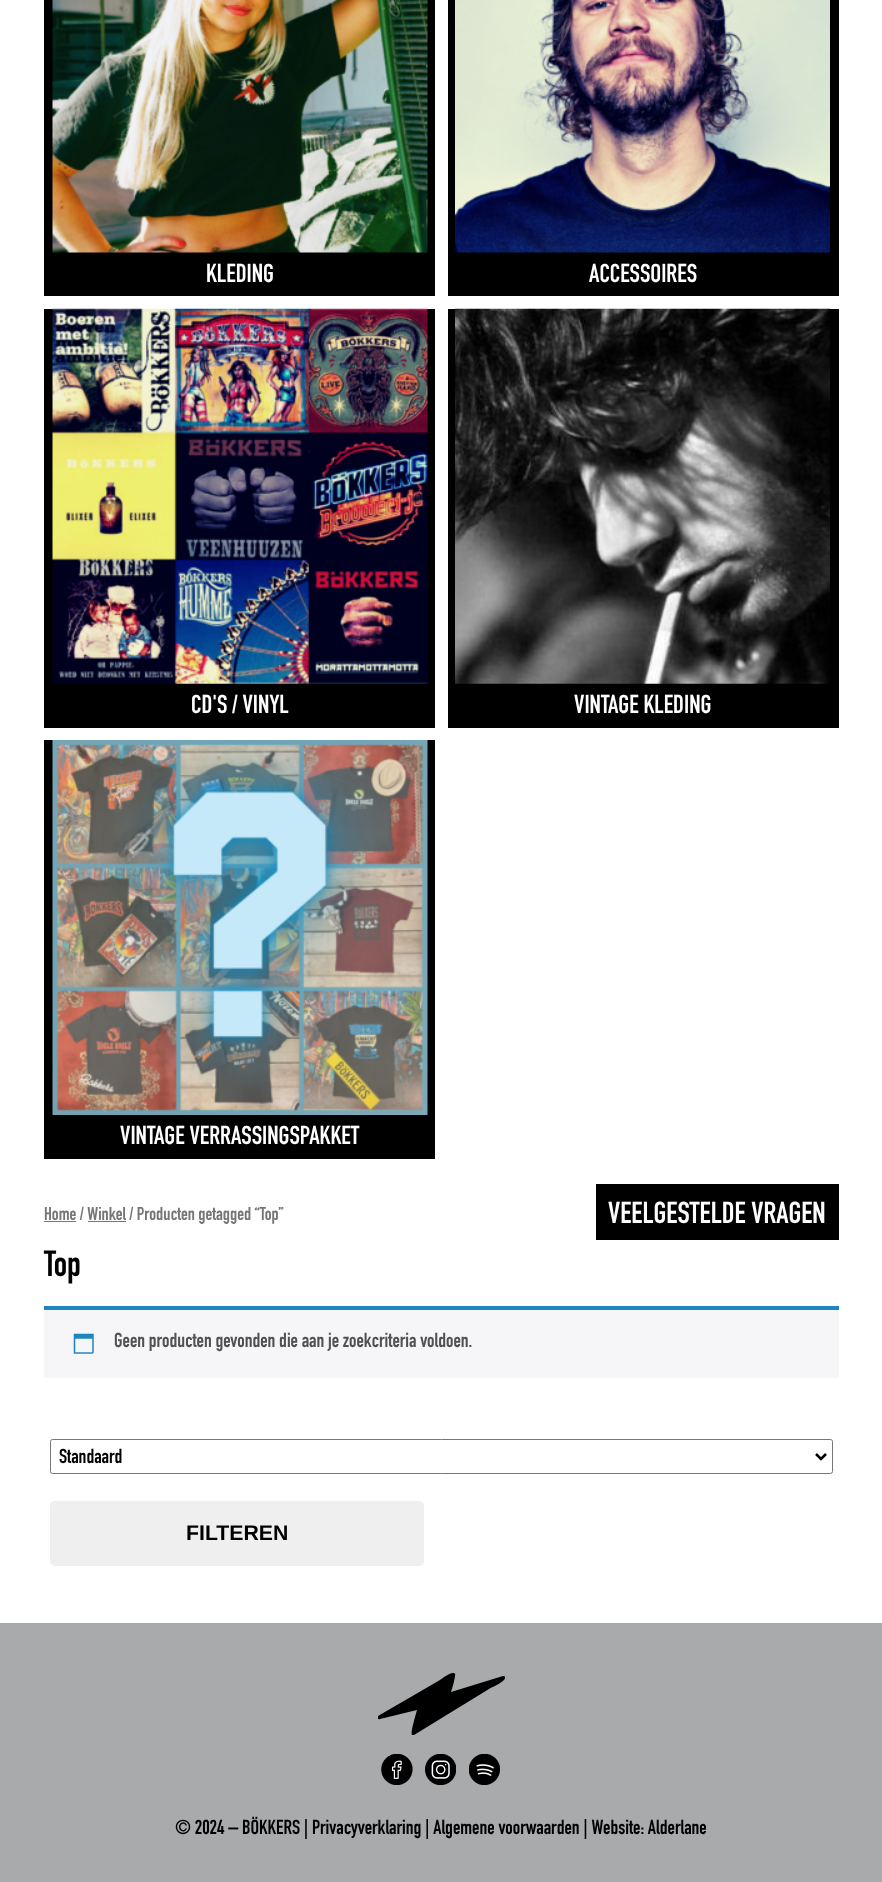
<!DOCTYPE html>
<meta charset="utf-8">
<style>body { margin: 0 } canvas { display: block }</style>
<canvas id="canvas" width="882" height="1882"></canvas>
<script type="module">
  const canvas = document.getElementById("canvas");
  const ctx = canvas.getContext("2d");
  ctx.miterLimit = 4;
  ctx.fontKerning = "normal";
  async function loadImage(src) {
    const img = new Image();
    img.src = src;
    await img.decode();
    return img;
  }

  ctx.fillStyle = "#ffffff";
  ctx.fillRect(0, 0, 882, 1882);
  ctx.fillStyle = "#000000";
  ctx.fillRect(44, 0, 391, 296);
  ctx.drawImage(await loadImage("img1.png"), 52, 0, 376, 253);
  ctx.font = "bold 25.5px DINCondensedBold";
  ctx.fillStyle = "#ffffff";
  ctx.fillText("KLEDING", 206, 282);
  ctx.fillStyle = "#000000";
  ctx.fillRect(448, 0, 391, 296);
  ctx.drawImage(await loadImage("img2.png"), 455, 0, 375, 253);
  ctx.fillStyle = "#ffffff";
  ctx.fillText("ACCESSOIRES", 589, 282);
  ctx.fillStyle = "#000000";
  ctx.fillRect(44, 309, 391, 419);
  ctx.drawImage(await loadImage("img3.png"), 52, 308, 376, 376);
  ctx.fillStyle = "#ffffff";
  ctx.fillText("CD'S / VINYL", 191, 713);
  ctx.fillStyle = "#000000";
  ctx.fillRect(448, 309, 391, 419);
  ctx.drawImage(await loadImage("img4.png"), 455, 308, 375, 376);
  ctx.fillStyle = "#ffffff";
  ctx.fillText("VINTAGE KLEDING", 574, 713);
  ctx.fillStyle = "#000000";
  ctx.fillRect(44, 740, 391, 419);
  ctx.drawImage(await loadImage("img5.png"), 52, 740, 376, 375);
  ctx.fillStyle = "#ffffff";
  ctx.fillText("VINTAGE VERRASSINGSPAKKET", 120, 1144);
  ctx.fillStyle = "#000000";
  ctx.fillRect(596, 1184, 243, 56);
  ctx.font = "bold 30px DINCondensedBold";
  ctx.fillStyle = "#ffffff";
  ctx.fillText("VEELGESTELDE VRAGEN", 608, 1223);
  ctx.fillStyle = "#767676";
  ctx.fillRect(44, 1221, 32, 1);
  ctx.font = "bold 18.4px DINCondensedBold";
  ctx.fillText("Home / Winkel / Producten getagged “Top”", 44, 1220);
  ctx.fillRect(88, 1221, 38, 1);
  ctx.font = "bold 36px DINCondensedBold";
  ctx.fillStyle = "#000000";
  ctx.fillText("Top", 44, 1276);
  ctx.fillStyle = "#f6f5f8";
  ctx.fillRect(44, 1310, 795, 68);
  ctx.fillStyle = "#1e85be";
  ctx.fillRect(44, 1306, 795, 4);
  ctx.drawImage(await loadImage("img6.png"), 73, 1333, 21, 21);
  ctx.font = "bold 20px DINCondensedBold";
  ctx.fillStyle = "#515151";
  ctx.fillText("Geen producten gevonden die aan je zoekcriteria voldoen.", 114, 1347);
  ctx.beginPath();
  ctx.roundRect(50.5, 1439.5, 782, 34, 2);
  ctx.strokeStyle = "#767676";
  ctx.stroke();
  ctx.beginPath();
  ctx.moveTo(816, 1454);
  ctx.lineTo(821, 1459);
  ctx.lineTo(826, 1454);
  ctx.strokeStyle = "#000000";
  ctx.lineWidth = 2.5;
  ctx.stroke();
  ctx.fillStyle = "#000000";
  ctx.fillText("Standaard", 59, 1463);
  ctx.fillStyle = "#efefef";
  ctx.beginPath();
  ctx.roundRect(50, 1501, 374, 65, 5);
  ctx.fill();
  ctx.font = "bold 21.25px Liberation Sans";
  ctx.fillStyle = "#000000";
  ctx.fillText("FILTEREN", 186, 1540);
  ctx.fillStyle = "#a9aaac";
  ctx.fillRect(0, 1623, 882, 259);
  ctx.save();
  ctx.beginPath();
  ctx.rect(378, 1673, 127, 62);
  ctx.clip();
  ctx.fillStyle = "#000000";
  ctx.beginPath();
  ctx.moveTo(505, 1677);
  ctx.bezierCurveTo(505, 1676, 504, 1676, 503, 1676);
  ctx.lineTo(451, 1692);
  ctx.bezierCurveTo(452, 1690, 456, 1675, 455, 1674);
  ctx.bezierCurveTo(453, 1670, 443, 1678, 440, 1680);
  ctx.lineTo(378, 1716);
  ctx.bezierCurveTo(377, 1717, 378, 1720, 380, 1719);
  ctx.lineTo(417, 1710);
  ctx.bezierCurveTo(416, 1714, 410, 1733, 412, 1735);
  ctx.lineTo(414, 1735);
  ctx.lineTo(489, 1689);
  ctx.bezierCurveTo(490, 1688, 507, 1681, 505, 1677);
  ctx.closePath();
  ctx.fill();
  ctx.restore();
  ctx.drawImage(await loadImage("img7.png"), 381, 1754, 32, 31);
  ctx.drawImage(await loadImage("img8.png"), 425, 1754, 31, 31);
  ctx.drawImage(await loadImage("img9.png"), 469, 1754, 31, 31);
  ctx.font = "bold 20px DINCondensedBold";
  ctx.fillStyle = "#000000";
  ctx.fillText("© 2024 – BÖKKERS | Privacyverklaring | Algemene voorwaarden | Website: Alderlane", 175, 1834);
</script>
